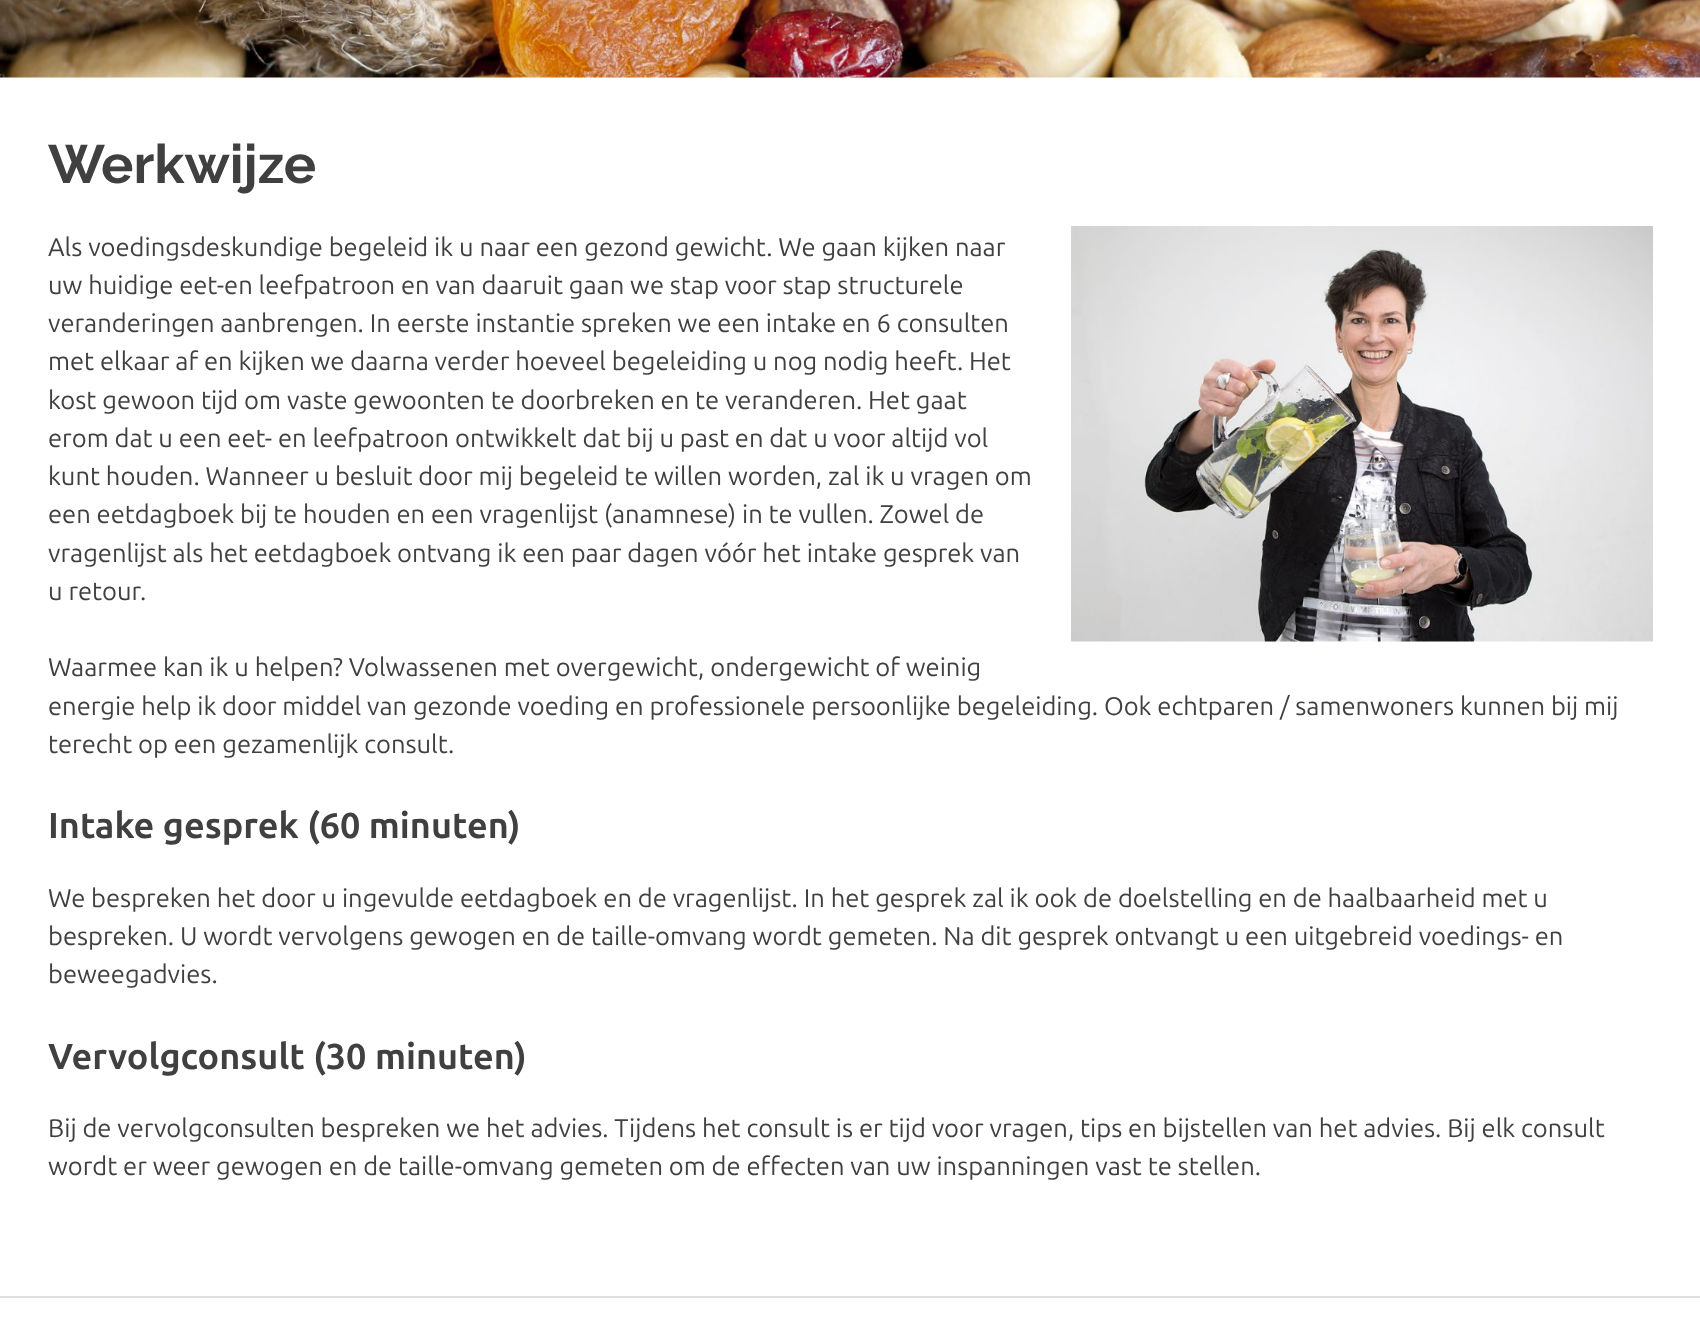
<!DOCTYPE html>
<meta charset="utf-8">
<style>body { margin: 0 } canvas { display: block }</style>
<canvas id="canvas" width="1700" height="1344"></canvas>
<script type="module">
  const canvas = document.getElementById("canvas");
  const ctx = canvas.getContext("2d");
  ctx.miterLimit = 4;
  ctx.fontKerning = "normal";
  async function loadImage(src) {
    const img = new Image();
    img.src = src;
    await img.decode();
    return img;
  }

  ctx.fillStyle = "#ffffff";
  ctx.fillRect(0, 0, 1700, 1344);
  ctx.drawImage(await loadImage("img1.png"), 0, 0, 1700, 78);
  ctx.font = "bold 54px Raleway";
  ctx.fillStyle = "#404040";
  ctx.fillText("Werkwijze", 48, 183);
  ctx.font = "25.5px Ubuntu";
  ctx.fillText("Als voedingsdeskundige begeleid ik u naar een gezond gewicht. We gaan kijken naar", 48, 256);
  ctx.drawImage(await loadImage("img2.png"), 1071, 226, 582, 416);
  ctx.fillText("uw huidige eet-en leefpatroon en van daaruit gaan we stap voor stap structurele", 48, 294);
  ctx.fillText("veranderingen aanbrengen. In eerste instantie spreken we een intake en 6 consulten", 48, 332);
  ctx.fillText("met elkaar af en kijken we daarna verder hoeveel begeleiding u nog nodig heeft. Het", 48, 370);
  ctx.fillText("kost gewoon tijd om vaste gewoonten te doorbreken en te veranderen. Het gaat", 48, 409);
  ctx.fillText("erom dat u een eet- en leefpatroon ontwikkelt dat bij u past en dat u voor altijd vol", 48, 447);
  ctx.fillText("kunt houden. Wanneer u besluit door mij begeleid te willen worden, zal ik u vragen om", 48, 485);
  ctx.fillText("een eetdagboek bij te houden en een vragenlijst (anamnese) in te vullen. Zowel de", 48, 523);
  ctx.fillText("vragenlijst als het eetdagboek ontvang ik een paar dagen vóór het intake gesprek van", 48, 562);
  ctx.fillText("u retour.", 48, 600);
  ctx.fillText("Waarmee kan ik u helpen? Volwassenen met overgewicht, ondergewicht of weinig", 48, 676);
  ctx.fillText("energie help ik door middel van gezonde voeding en professionele persoonlijke begeleiding. Ook echtparen / samenwoners kunnen bij mij", 48, 715);
  ctx.fillText("terecht op een gezamenlijk consult.", 48, 753);
  ctx.font = "bold 36px Ubuntu";
  ctx.fillText("Intake gesprek (60 minuten)", 48, 838);
  ctx.font = "25.5px Ubuntu";
  ctx.fillText("We bespreken het door u ingevulde eetdagboek en de vragenlijst. In het gesprek zal ik ook de doelstelling en de haalbaarheid met u", 48, 907);
  ctx.fillText("bespreken. U wordt vervolgens gewogen en de taille-omvang wordt gemeten. Na dit gesprek ontvangt u een uitgebreid voedings- en", 48, 945);
  ctx.fillText("beweegadvies.", 48, 983);
  ctx.font = "bold 36px Ubuntu";
  ctx.fillText("Vervolgconsult (30 minuten)", 48, 1069);
  ctx.font = "25.5px Ubuntu";
  ctx.fillText("Bij de vervolgconsulten bespreken we het advies. Tijdens het consult is er tijd voor vragen, tips en bijstellen van het advies. Bij elk consult", 48, 1137);
  ctx.fillText("wordt er weer gewogen en de taille-omvang gemeten om de effecten van uw inspanningen vast te stellen.", 48, 1175);
  ctx.fillStyle = "#e0e0e0";
  ctx.fillRect(0, 1296, 1700, 2);
</script>
